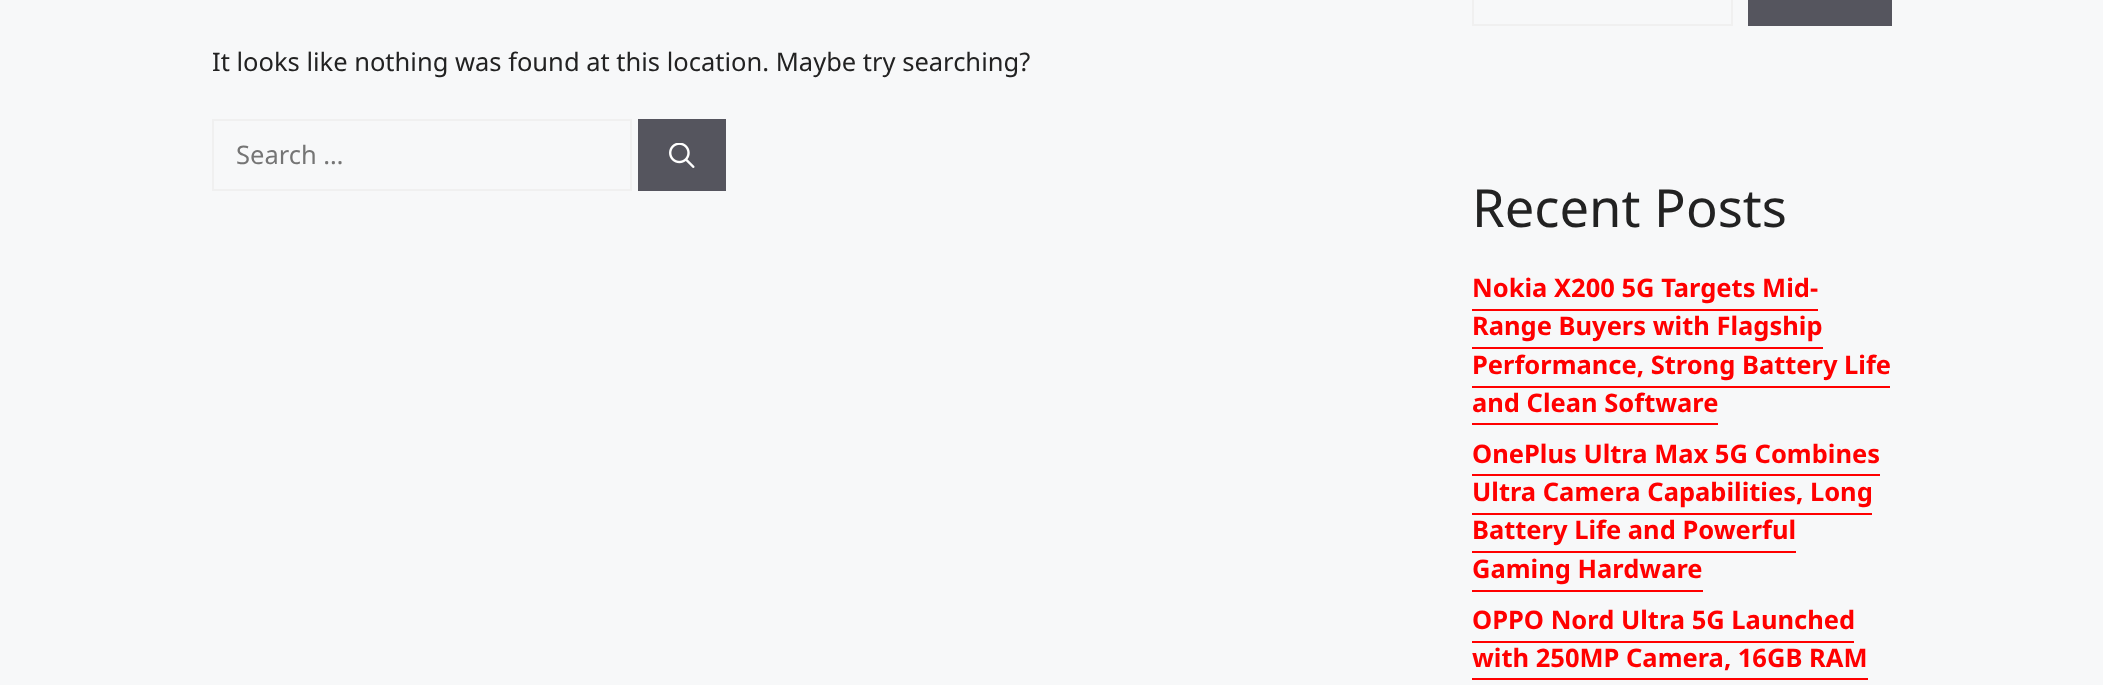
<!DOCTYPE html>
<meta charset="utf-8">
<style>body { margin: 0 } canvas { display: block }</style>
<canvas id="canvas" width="2103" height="685"></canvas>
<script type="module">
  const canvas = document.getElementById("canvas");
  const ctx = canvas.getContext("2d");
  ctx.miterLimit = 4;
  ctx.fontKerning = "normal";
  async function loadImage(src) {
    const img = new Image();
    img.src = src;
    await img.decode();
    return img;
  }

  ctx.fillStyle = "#f7f8f9";
  ctx.fillRect(0, 0, 2103, 685);
  ctx.font = "25.5px Noto Sans";
  ctx.fillStyle = "#222222";
  ctx.fillText("It looks like nothing was found at this location. Maybe try searching?", 212, 71);
  ctx.strokeStyle = "#f0f0f0";
  ctx.lineWidth = 2;
  ctx.strokeRect(213, 120, 418, 70);
  ctx.fillStyle = "#757575";
  ctx.fillText("Search …", 236, 164);
  ctx.fillStyle = "#55555e";
  ctx.fillRect(638, 119, 88, 72);
  ctx.drawImage(await loadImage("img1.png"), 669, 143, 26, 25);
  ctx.strokeRect(1473, -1, 259, 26);
  ctx.fillRect(1748, 0, 144, 26);
  ctx.font = "52.5px Noto Sans";
  ctx.fillStyle = "#222222";
  ctx.fillText("Recent Posts", 1472, 227);
  ctx.font = "bold 25.5px Noto Sans";
  ctx.fillStyle = "#ff0000";
  ctx.fillText("Nokia X200 5G Targets Mid-", 1472, 297);
  ctx.fillText("Range Buyers with Flagship", 1472, 335);
  ctx.fillRect(1472, 309, 346, 2);
  ctx.fillRect(1472, 347, 351, 2);
  ctx.fillText("Performance, Strong Battery Life", 1472, 374);
  ctx.fillText("and Clean Software", 1472, 412);
  ctx.fillRect(1472, 386, 418, 2);
  ctx.fillRect(1472, 423, 246, 2);
  ctx.fillText("OnePlus Ultra Max 5G Combines", 1472, 463);
  ctx.fillText("Ultra Camera Capabilities, Long", 1472, 501);
  ctx.fillRect(1472, 474, 408, 2);
  ctx.fillText("Battery Life and Powerful", 1472, 539);
  ctx.fillRect(1472, 513, 400, 2);
  ctx.fillRect(1472, 551, 324, 2);
  ctx.fillText("Gaming Hardware", 1472, 578);
  ctx.fillRect(1472, 590, 231, 2);
  ctx.fillText("OPPO Nord Ultra 5G Launched", 1472, 629);
  ctx.fillText("with 250MP Camera, 16GB RAM", 1472, 667);
  ctx.fillRect(1472, 641, 382, 2);
  ctx.fillRect(1472, 678, 396, 2);
</script>
